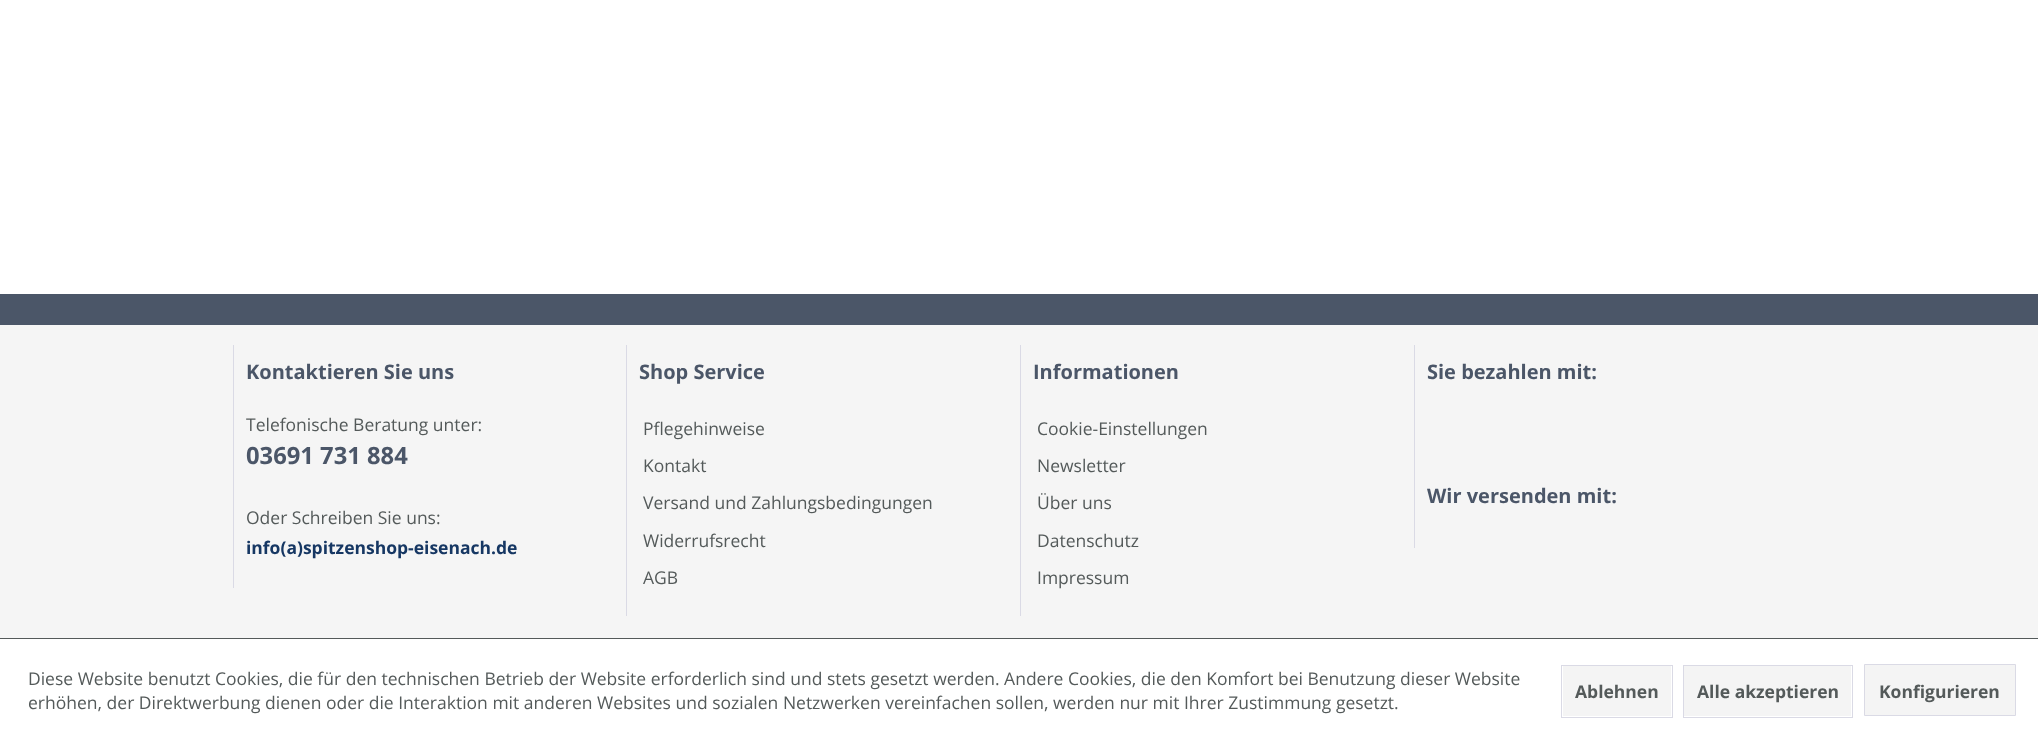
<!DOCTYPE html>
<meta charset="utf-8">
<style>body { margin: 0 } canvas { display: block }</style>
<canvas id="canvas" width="2038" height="741"></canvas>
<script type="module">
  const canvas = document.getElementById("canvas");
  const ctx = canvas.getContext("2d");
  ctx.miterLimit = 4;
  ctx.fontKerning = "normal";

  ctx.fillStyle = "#ffffff";
  ctx.fillRect(0, 0, 2038, 741);
  ctx.fillStyle = "#f5f5f5";
  ctx.fillRect(0, 325, 2038, 313);
  ctx.fillStyle = "#4b5668";
  ctx.fillRect(0, 294, 2038, 31);
  ctx.fillStyle = "#dadae5";
  ctx.fillRect(233, 345, 1, 243);
  ctx.font = "bold 20px Open Sans";
  ctx.fillStyle = "#4b5668";
  ctx.fillText("Kontaktieren Sie uns", 246, 379);
  ctx.font = "17.5px Open Sans";
  ctx.fillStyle = "#545a5a";
  ctx.fillText("Telefonische Beratung unter:", 246, 431);
  ctx.font = "bold 23.75px Open Sans";
  ctx.fillStyle = "#4b5668";
  ctx.fillText("03691 731 884", 246, 464);
  ctx.font = "17.5px Open Sans";
  ctx.fillStyle = "#545a5a";
  ctx.fillText("Oder Schreiben Sie uns:", 246, 524);
  ctx.font = "bold 17.5px Open Sans";
  ctx.fillStyle = "#163763";
  ctx.fillText("info(a)spitzenshop-eisenach.de", 246, 554);
  ctx.fillStyle = "#dadae5";
  ctx.fillRect(626, 345, 1, 271);
  ctx.font = "bold 20px Open Sans";
  ctx.fillStyle = "#4b5668";
  ctx.fillText("Shop Service", 639, 379);
  ctx.font = "17.5px Open Sans";
  ctx.fillStyle = "#545a5a";
  ctx.fillText("Pflegehinweise", 643, 435);
  ctx.fillText("Kontakt", 643, 472);
  ctx.fillText("Versand und Zahlungsbedingungen", 643, 509);
  ctx.fillText("Widerrufsrecht", 643, 547);
  ctx.fillText("AGB", 643, 584);
  ctx.fillStyle = "#dadae5";
  ctx.fillRect(1020, 345, 1, 271);
  ctx.font = "bold 20px Open Sans";
  ctx.fillStyle = "#4b5668";
  ctx.fillText("Informationen", 1033, 379);
  ctx.font = "17.5px Open Sans";
  ctx.fillStyle = "#545a5a";
  ctx.fillText("Cookie-Einstellungen", 1037, 435);
  ctx.fillText("Newsletter", 1037, 472);
  ctx.fillText("Über uns", 1037, 509);
  ctx.fillText("Datenschutz", 1037, 547);
  ctx.fillText("Impressum", 1037, 584);
  ctx.fillStyle = "#dadae5";
  ctx.fillRect(1414, 345, 1, 203);
  ctx.font = "bold 20px Open Sans";
  ctx.fillStyle = "#4b5668";
  ctx.fillText("Sie bezahlen mit:", 1427, 379);
  ctx.fillText("Wir versenden mit:", 1427, 503);
  ctx.fillStyle = "#545a5a";
  ctx.fillRect(0, 638, 2038, 1);
  ctx.font = "17.5px Open Sans";
  ctx.fillText("Diese Website benutzt Cookies, die für den technischen Betrieb der Website erforderlich sind und stets gesetzt werden. Andere Cookies, die den Komfort bei Benutzung dieser Website", 28, 685);
  ctx.fillText("erhöhen, der Direktwerbung dienen oder die Interaktion mit anderen Websites und sozialen Netzwerken vereinfachen sollen, werden nur mit Ihrer Zustimmung gesetzt.", 28, 709);
  ctx.fillStyle = "#f4f4f4";
  ctx.fillRect(1563, 666, 108, 50);
  ctx.strokeStyle = "#dadae5";
  ctx.strokeRect(1561.5, 665.5, 111, 52);
  ctx.font = "bold 17.5px Open Sans";
  ctx.fillStyle = "#545a5a";
  ctx.fillText("Ablehnen", 1575, 698);
  ctx.fillStyle = "#f4f4f4";
  ctx.fillRect(1684, 666, 167, 50);
  ctx.strokeRect(1683.5, 665.5, 169, 52);
  ctx.fillStyle = "#545a5a";
  ctx.fillText("Alle akzeptieren", 1697, 698);
  ctx.fillStyle = "#f4f4f4";
  ctx.beginPath();
  ctx.rect(1864.5, 664.5, 151, 51);
  ctx.fill();
  ctx.stroke();
  ctx.fillStyle = "#545a5a";
  ctx.fillText("Konfigurieren", 1879, 698);
</script>
